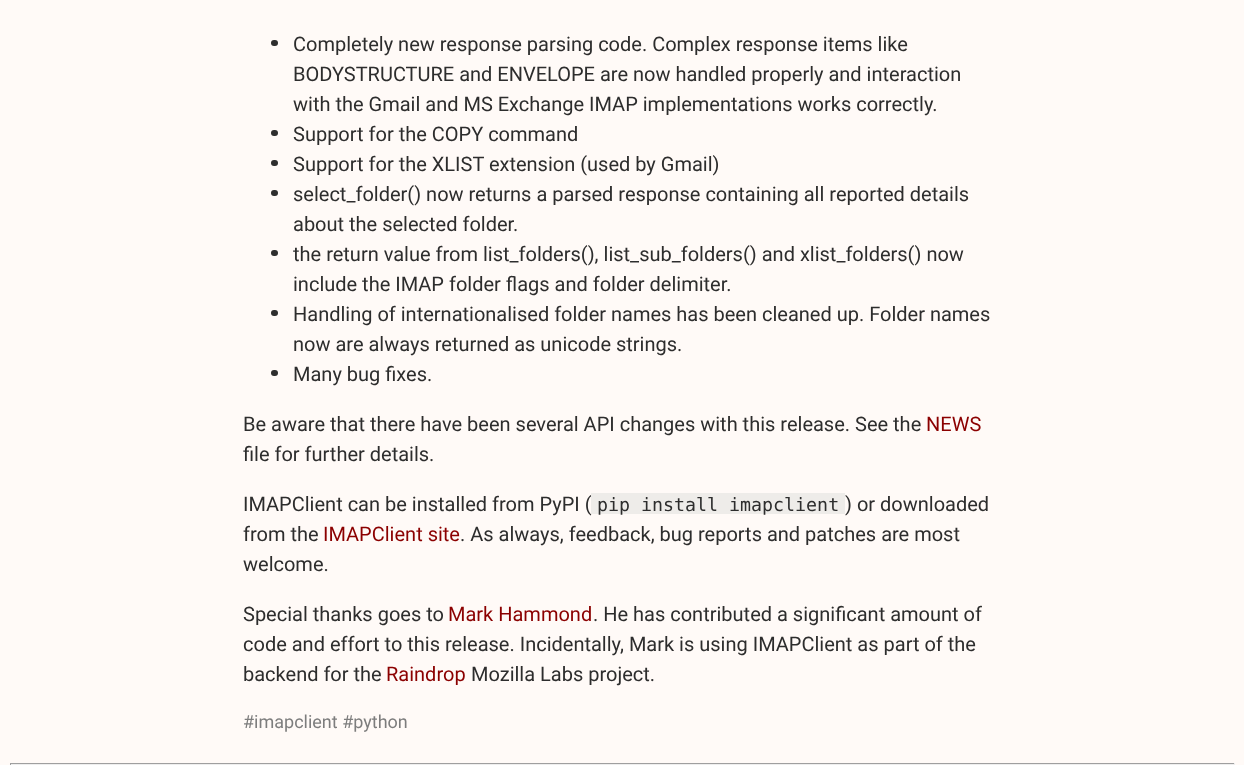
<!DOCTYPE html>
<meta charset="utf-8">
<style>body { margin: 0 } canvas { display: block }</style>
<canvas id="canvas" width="1244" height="765"></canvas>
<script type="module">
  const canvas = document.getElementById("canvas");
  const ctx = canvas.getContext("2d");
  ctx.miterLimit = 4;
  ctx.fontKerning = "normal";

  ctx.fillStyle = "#fffaf7";
  ctx.fillRect(0, 0, 1244, 765);
  ctx.fillStyle = "#2d2d2d";
  ctx.beginPath();
  ctx.roundRect(271, 40, 7, 6, 3);
  ctx.fill();
  ctx.font = "20px Roboto";
  ctx.fillText("Completely new response parsing code. Complex response items like", 293, 51);
  ctx.fillText("BODYSTRUCTURE and ENVELOPE are now handled properly and interaction", 293, 81);
  ctx.fillText("with the Gmail and MS Exchange IMAP implementations works correctly.", 293, 111);
  ctx.beginPath();
  ctx.roundRect(271, 130, 7, 6, 3);
  ctx.fill();
  ctx.fillText("Support for the COPY command", 293, 141);
  ctx.beginPath();
  ctx.roundRect(271, 160, 7, 6, 3);
  ctx.fill();
  ctx.fillText("Support for the XLIST extension (used by Gmail)", 293, 171);
  ctx.beginPath();
  ctx.roundRect(271, 190, 7, 6, 3);
  ctx.fill();
  ctx.fillText("select_folder() now returns a parsed response containing all reported details", 293, 201);
  ctx.fillText("about the selected folder.", 293, 231);
  ctx.beginPath();
  ctx.roundRect(271, 250, 7, 6, 3);
  ctx.fill();
  ctx.fillText("the return value from list_folders(), list_sub_folders() and xlist_folders() now", 293, 261);
  ctx.fillText("include the IMAP folder flags and folder delimiter.", 293, 291);
  ctx.beginPath();
  ctx.roundRect(271, 310, 7, 6, 3);
  ctx.fill();
  ctx.fillText("Handling of internationalised folder names has been cleaned up. Folder names", 293, 321);
  ctx.fillText("now are always returned as unicode strings.", 293, 351);
  ctx.beginPath();
  ctx.roundRect(271, 370, 7, 6, 3);
  ctx.fill();
  ctx.fillText("Many bug fixes.", 293, 381);
  ctx.fillText("Be aware that there have been several API changes with this release. See the", 243, 431);
  ctx.fillStyle = "#8b0000";
  ctx.fillText("NEWS", 926, 431);
  ctx.fillStyle = "#2d2d2d";
  ctx.fillText("file for further details.", 243, 461);
  ctx.fillText("IMAPClient can be installed from PyPI (", 243, 511);
  ctx.fillStyle = "#eeece9";
  ctx.fillRect(591, 493, 254, 21);
  ctx.font = "18.3px DejaVu Sans Mono";
  ctx.fillStyle = "#2d2d2d";
  ctx.fillText("pip install imapclient", 597, 511);
  ctx.font = "20px Roboto";
  ctx.fillText(") or downloaded", 845, 511);
  ctx.fillText("from the", 243, 541);
  ctx.fillStyle = "#8b0000";
  ctx.fillText("IMAPClient site", 323, 541);
  ctx.fillStyle = "#2d2d2d";
  ctx.fillText(". As always, feedback, bug reports and patches are most", 460, 541);
  ctx.fillText("welcome.", 243, 571);
  ctx.fillText("Special thanks goes to", 243, 621);
  ctx.fillStyle = "#8b0000";
  ctx.fillText("Mark Hammond", 448, 621);
  ctx.fillStyle = "#2d2d2d";
  ctx.fillText(". He has contributed a significant amount of", 593, 621);
  ctx.fillText("code and effort to this release. Incidentally, Mark is using IMAPClient as part of the", 243, 651);
  ctx.fillText("backend for the", 243, 681);
  ctx.fillStyle = "#8b0000";
  ctx.fillText("Raindrop", 386, 681);
  ctx.fillStyle = "#2d2d2d";
  ctx.fillText("Mozilla Labs project.", 471, 681);
  ctx.font = "18px Roboto";
  ctx.fillStyle = "#7d7d7d";
  ctx.fillText("#imapclient #python", 243, 728);
  ctx.fillStyle = "#9f9f9f";
  ctx.fillRect(10, 763, 1225, 1);
  ctx.fillStyle = "#eeeeee";
  ctx.fillRect(1234, 763, 1, 2);
  ctx.fillRect(10, 764, 1225, 1);
  ctx.fillStyle = "#9f9f9f";
  ctx.fillRect(10, 763, 1, 2);
</script>
